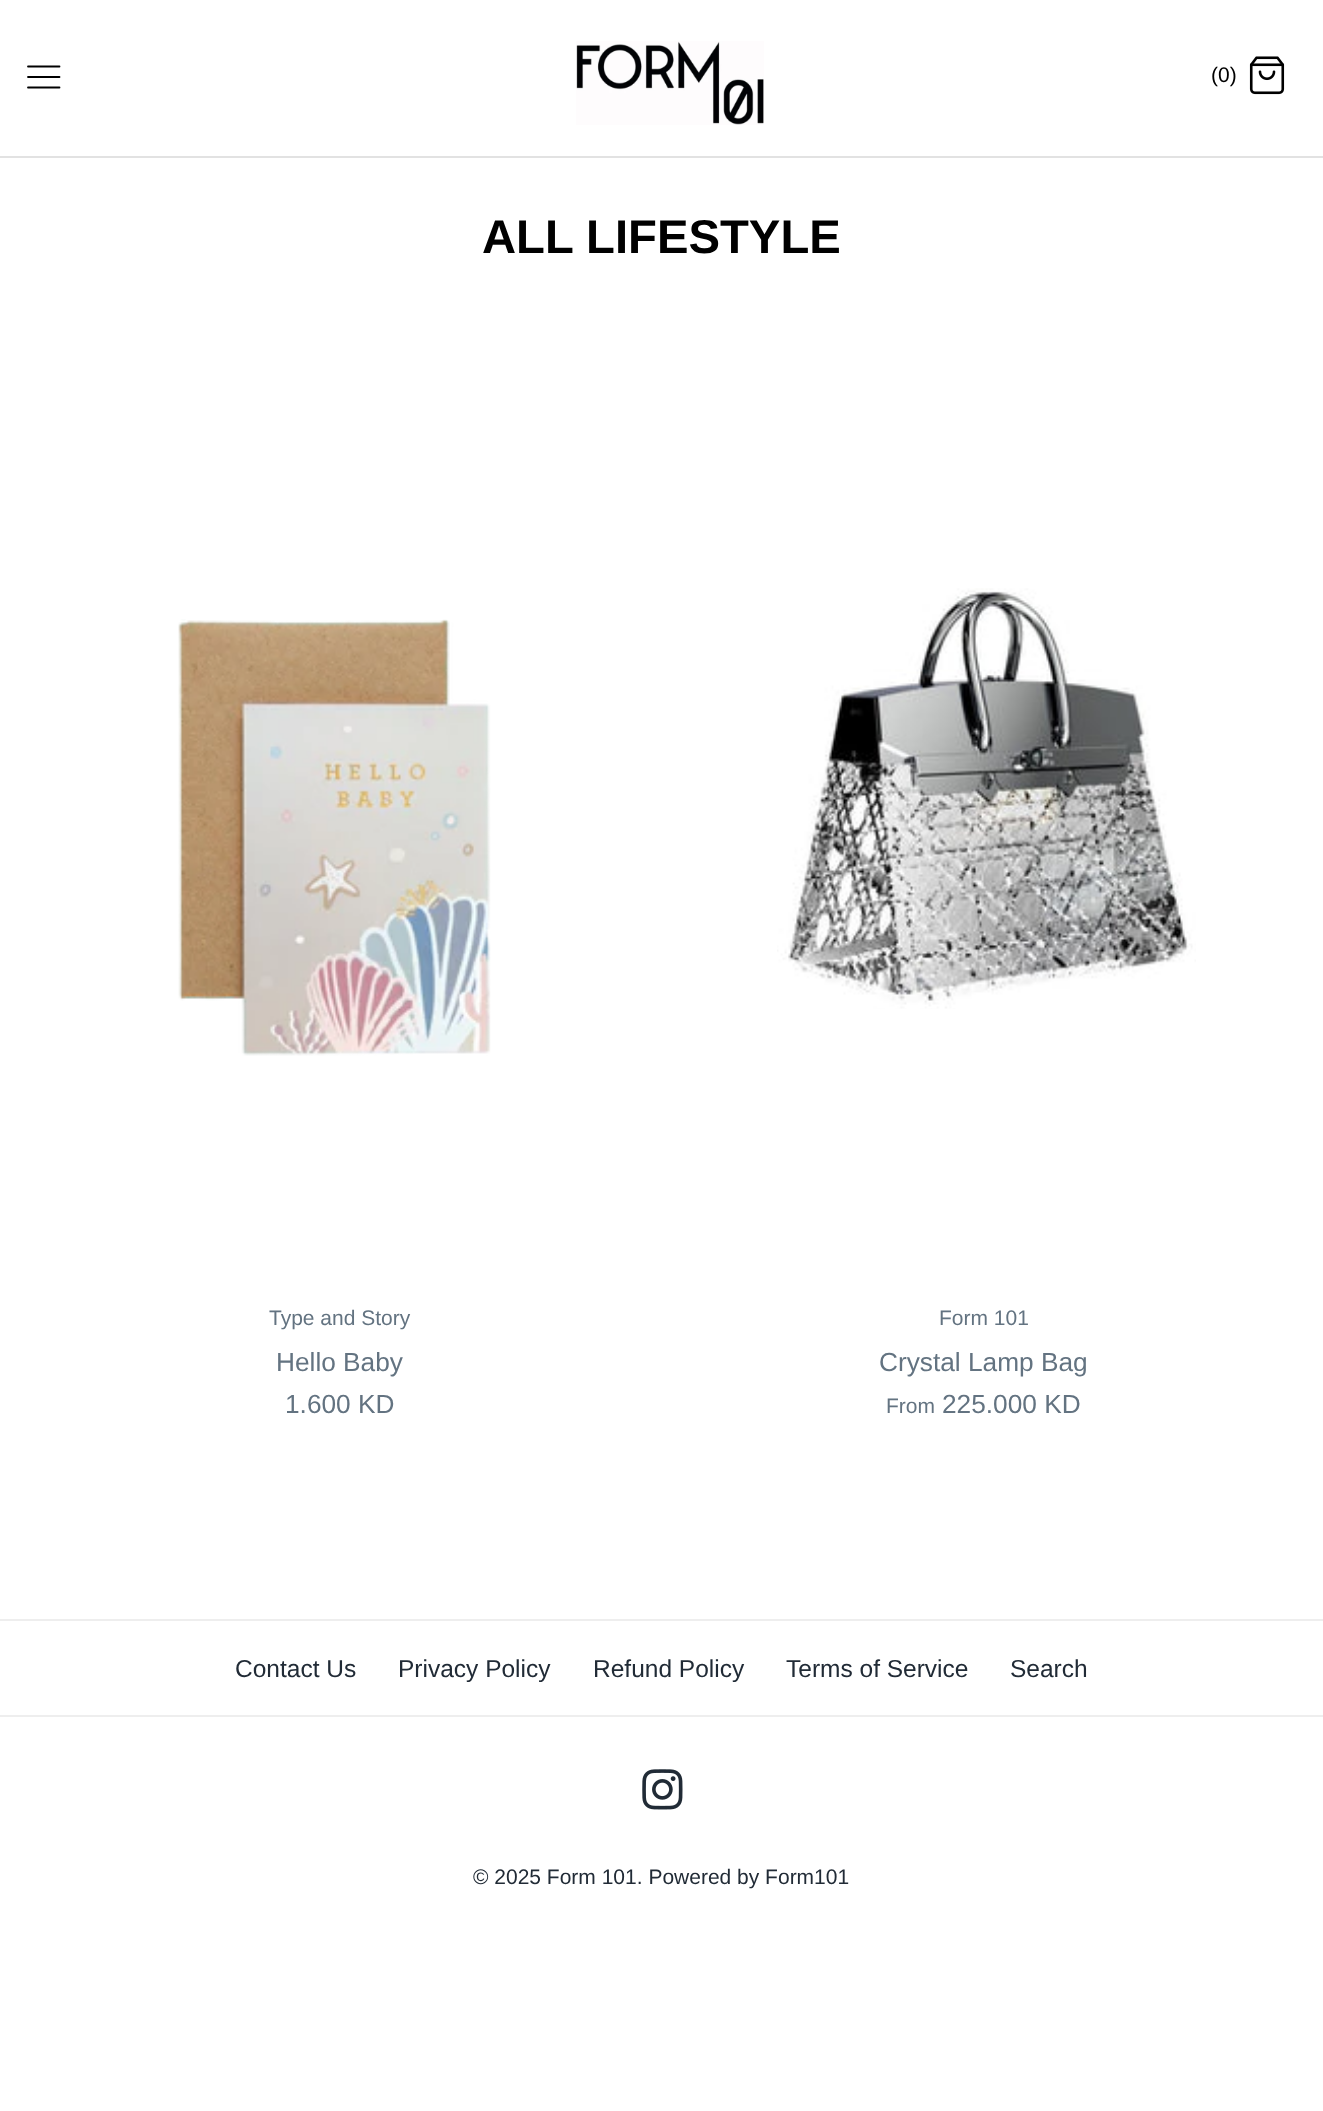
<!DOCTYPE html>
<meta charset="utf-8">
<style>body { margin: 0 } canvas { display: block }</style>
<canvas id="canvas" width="1323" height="2111"></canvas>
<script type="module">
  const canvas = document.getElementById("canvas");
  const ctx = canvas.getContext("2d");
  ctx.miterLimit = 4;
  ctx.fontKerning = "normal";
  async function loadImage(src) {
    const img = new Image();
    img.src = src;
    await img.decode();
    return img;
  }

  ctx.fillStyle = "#ffffff";
  ctx.fillRect(0, 0, 1323, 2111);
  ctx.fillStyle = "#e2e2e2";
  ctx.fillRect(0, 156, 1323, 2);
  ctx.beginPath();
  ctx.moveTo(28, 77);
  ctx.lineTo(59.5, 77);
  ctx.moveTo(28, 66.5);
  ctx.lineTo(59.5, 66.5);
  ctx.moveTo(28, 87.5);
  ctx.lineTo(59.5, 87.5);
  ctx.strokeStyle = "#000000";
  ctx.lineWidth = 1.8;
  ctx.lineCap = "round";
  ctx.lineJoin = "round";
  ctx.stroke();
  ctx.drawImage(await loadImage("img1.png"), 576, 41, 188, 84);
  ctx.font = "21px Liberation Sans";
  ctx.fillStyle = "#000000";
  ctx.fillText("(0)", 1211, 82);
  ctx.drawImage(await loadImage("img2.png"), 1249, 56, 36, 39);
  ctx.font = "bold 47.25px Liberation Sans";
  ctx.fillText("ALL LIFESTYLE", 482, 253);
  ctx.drawImage(await loadImage("img3.png"), 178, 619, 313, 437);
  ctx.font = "21px Liberation Sans";
  ctx.fillStyle = "#637381";
  ctx.fillText("Type and Story", 269, 1325);
  ctx.font = "26.25px Liberation Sans";
  ctx.fillText("Hello Baby", 276, 1371);
  ctx.fillText("1.600 KD", 285, 1413);
  ctx.drawImage(await loadImage("img4.png"), 777, 588, 419, 421);
  ctx.font = "21px Liberation Sans";
  ctx.fillText("Form 101", 939, 1325);
  ctx.font = "26.25px Liberation Sans";
  ctx.fillText("Crystal Lamp Bag", 879, 1371);
  ctx.font = "21px Liberation Sans";
  ctx.fillText("From", 886, 1413);
  ctx.font = "26.25px Liberation Sans";
  ctx.fillText("225.000 KD", 942, 1413);
  ctx.fillStyle = "#eeeeee";
  ctx.fillRect(0, 1619, 1323, 2);
  ctx.fillRect(0, 1715, 1323, 2);
  ctx.font = "24.5px Liberation Sans";
  ctx.fillStyle = "#212b36";
  ctx.fillText("Contact Us", 235, 1677);
  ctx.fillText("Privacy Policy", 398, 1677);
  ctx.fillText("Refund Policy", 593, 1677);
  ctx.fillText("Terms of Service", 786, 1677);
  ctx.fillText("Search", 1010, 1677);
  ctx.drawImage(await loadImage("img5.png"), 642, 1769, 41, 41);
  ctx.font = "21px Liberation Sans";
  ctx.fillText("© 2025 Form 101. Powered by Form101", 473, 1884);
</script>
